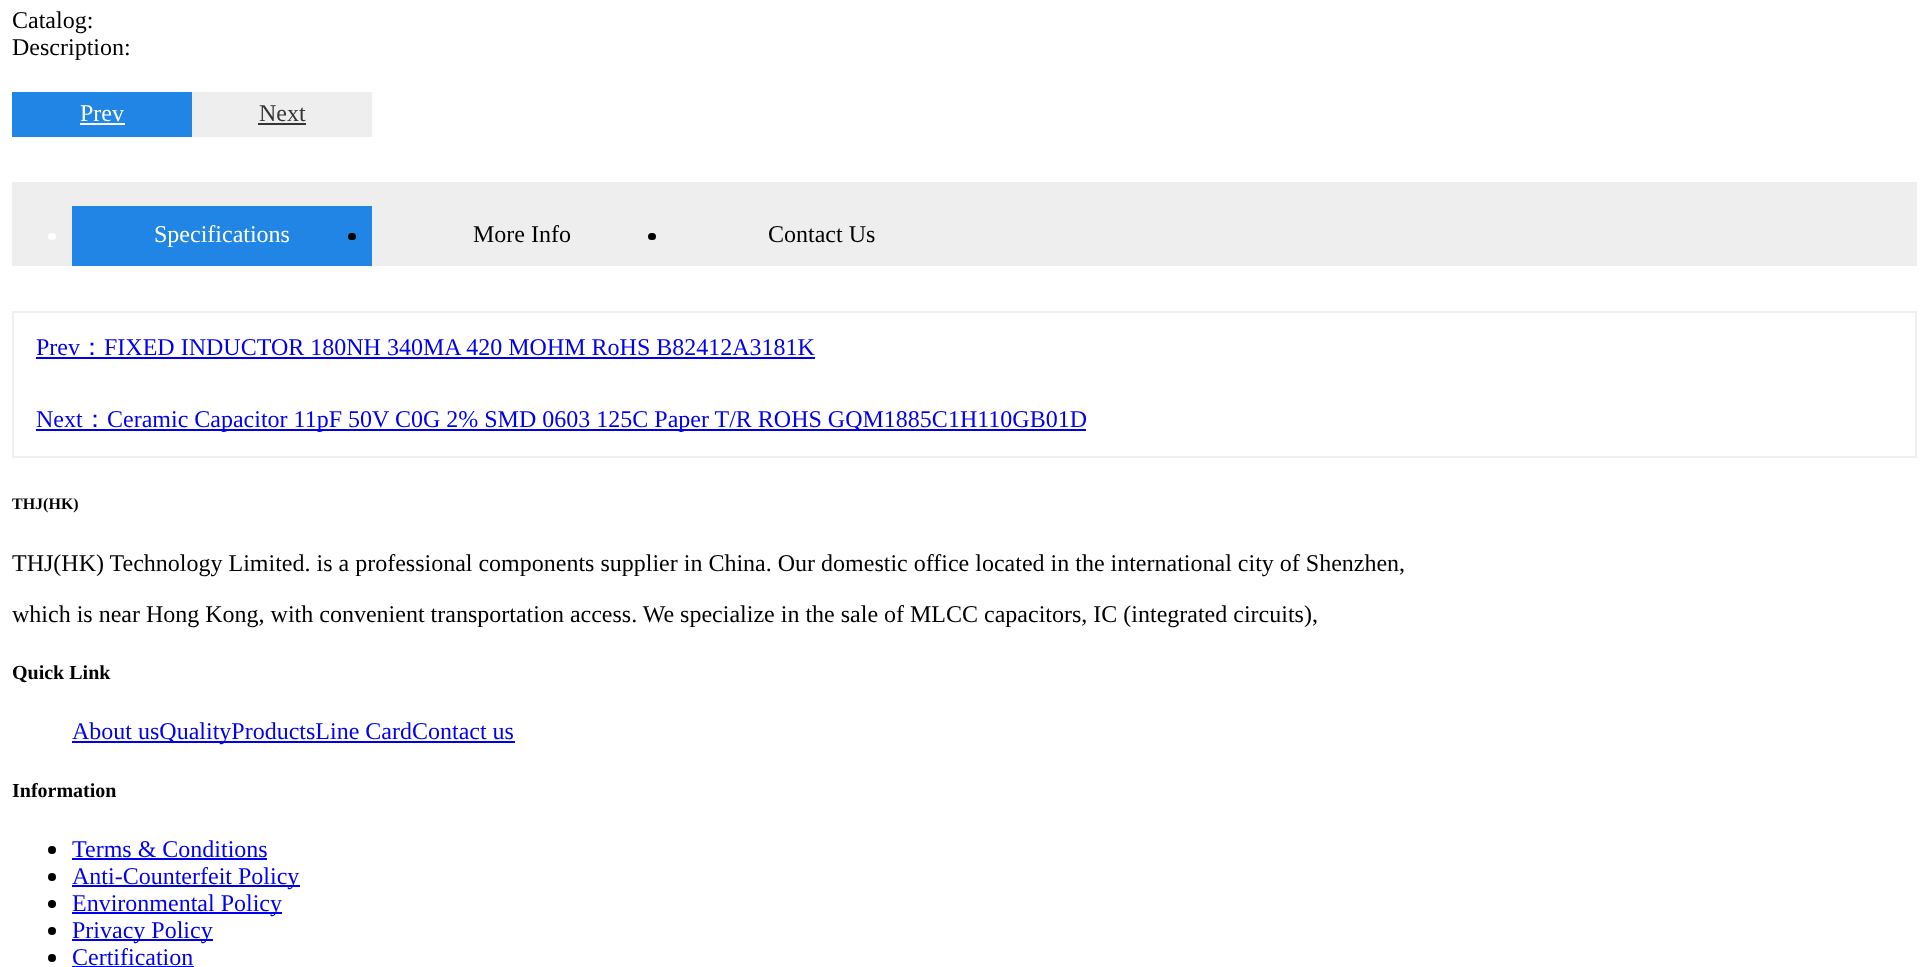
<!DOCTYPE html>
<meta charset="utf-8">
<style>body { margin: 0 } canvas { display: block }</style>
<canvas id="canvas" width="1928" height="967"></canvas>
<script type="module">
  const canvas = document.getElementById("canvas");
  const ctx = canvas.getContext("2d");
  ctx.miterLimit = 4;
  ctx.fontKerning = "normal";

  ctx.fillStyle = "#ffffff";
  ctx.fillRect(0, 0, 1928, 967);
  ctx.font = "24px Liberation Serif";
  ctx.fillStyle = "#000000";
  ctx.fillText("Catalog:", 12, 28);
  ctx.fillText("Description:", 12, 55);
  ctx.fillStyle = "#2085e4";
  ctx.fillRect(12, 92, 180, 45);
  ctx.fillStyle = "#ffffff";
  ctx.fillText("Prev", 80, 121);
  ctx.fillRect(80, 123, 45, 2);
  ctx.fillStyle = "#eeeeee";
  ctx.fillRect(192, 92, 180, 45);
  ctx.fillStyle = "#343434";
  ctx.fillText("Next", 259, 121);
  ctx.fillRect(258, 123, 48, 2);
  ctx.fillStyle = "#eeeeee";
  ctx.fillRect(12, 182, 1905, 84);
  ctx.fillStyle = "#2085e4";
  ctx.fillRect(72, 206, 300, 60);
  ctx.fillStyle = "#ffffff";
  ctx.beginPath();
  ctx.roundRect(48, 233, 8, 7, 3.5);
  ctx.fill();
  ctx.fillText("Specifications", 154, 242);
  ctx.fillStyle = "#000000";
  ctx.beginPath();
  ctx.roundRect(348, 233, 8, 7, 3.5);
  ctx.fill();
  ctx.fillText("More Info", 473, 242);
  ctx.beginPath();
  ctx.roundRect(648, 233, 8, 7, 3.5);
  ctx.fill();
  ctx.fillText("Contact Us", 768, 242);
  ctx.strokeStyle = "#f0f0f0";
  ctx.lineWidth = 2;
  ctx.strokeRect(13, 312, 1903, 145);
  ctx.fillStyle = "#0000ee";
  ctx.fillText("Prev", 36, 355);
  ctx.font = "500 24px WenQuanYi Zen Hei";
  ctx.fillText("：", 80, 355);
  ctx.fillRect(36, 357, 779, 2);
  ctx.font = "24px Liberation Serif";
  ctx.fillText("FIXED INDUCTOR 180NH 340MA 420 MOHM RoHS B82412A3181K", 104, 355);
  ctx.fillText("Next", 36, 427);
  ctx.font = "500 24px WenQuanYi Zen Hei";
  ctx.fillText("：", 83, 427);
  ctx.fillRect(36, 429, 1050, 2);
  ctx.font = "24px Liberation Serif";
  ctx.fillText("Ceramic Capacitor 11pF 50V C0G 2% SMD 0603 125C Paper T/R ROHS GQM1885C1H110GB01D", 107, 427);
  ctx.font = "bold 16px Liberation Serif";
  ctx.fillStyle = "#000000";
  ctx.fillText("THJ(HK)", 12, 509);
  ctx.font = "24px Liberation Serif";
  ctx.fillText("THJ(HK) Technology Limited. is a professional components supplier in China. Our domestic office located in the international city of Shenzhen,", 12, 571);
  ctx.fillText("which is near Hong Kong, with convenient transportation access. We specialize in the sale of MLCC capacitors, IC (integrated circuits),", 12, 622);
  ctx.font = "bold 20px Liberation Serif";
  ctx.fillText("Quick Link", 12, 679);
  ctx.fillStyle = "#0000ee";
  ctx.fillRect(72, 741, 159, 2);
  ctx.font = "24px Liberation Serif";
  ctx.fillText("About usQualityProductsLine CardContact us", 72, 739);
  ctx.fillRect(231, 741, 284, 2);
  ctx.font = "bold 20px Liberation Serif";
  ctx.fillStyle = "#000000";
  ctx.fillText("Information", 12, 797);
  ctx.beginPath();
  ctx.arc(52, 850, 4, 0, Math.PI * 2);
  ctx.fill();
  ctx.font = "24px Liberation Serif";
  ctx.fillStyle = "#0000ee";
  ctx.fillText("Terms & Conditions", 72, 857);
  ctx.fillRect(72, 858, 195, 2);
  ctx.fillStyle = "#000000";
  ctx.beginPath();
  ctx.arc(52, 877, 4, 0, Math.PI * 2);
  ctx.fill();
  ctx.fillStyle = "#0000ee";
  ctx.fillRect(72, 885, 228, 2);
  ctx.fillText("Anti-Counterfeit Policy", 72, 884);
  ctx.fillStyle = "#000000";
  ctx.beginPath();
  ctx.arc(52, 904, 4, 0, Math.PI * 2);
  ctx.fill();
  ctx.fillStyle = "#0000ee";
  ctx.fillRect(72, 912, 210, 2);
  ctx.fillText("Environmental Policy", 72, 911);
  ctx.fillStyle = "#000000";
  ctx.beginPath();
  ctx.arc(52, 931, 4, 0, Math.PI * 2);
  ctx.fill();
  ctx.fillStyle = "#0000ee";
  ctx.fillRect(72, 939, 141, 2);
  ctx.fillText("Privacy Policy", 72, 938);
  ctx.fillStyle = "#000000";
  ctx.beginPath();
  ctx.arc(52, 958, 4, 0, Math.PI * 2);
  ctx.fill();
  ctx.fillStyle = "#0000ee";
  ctx.fillText("Certification", 72, 965);
  ctx.fillRect(72, 966, 122, 1);
</script>
